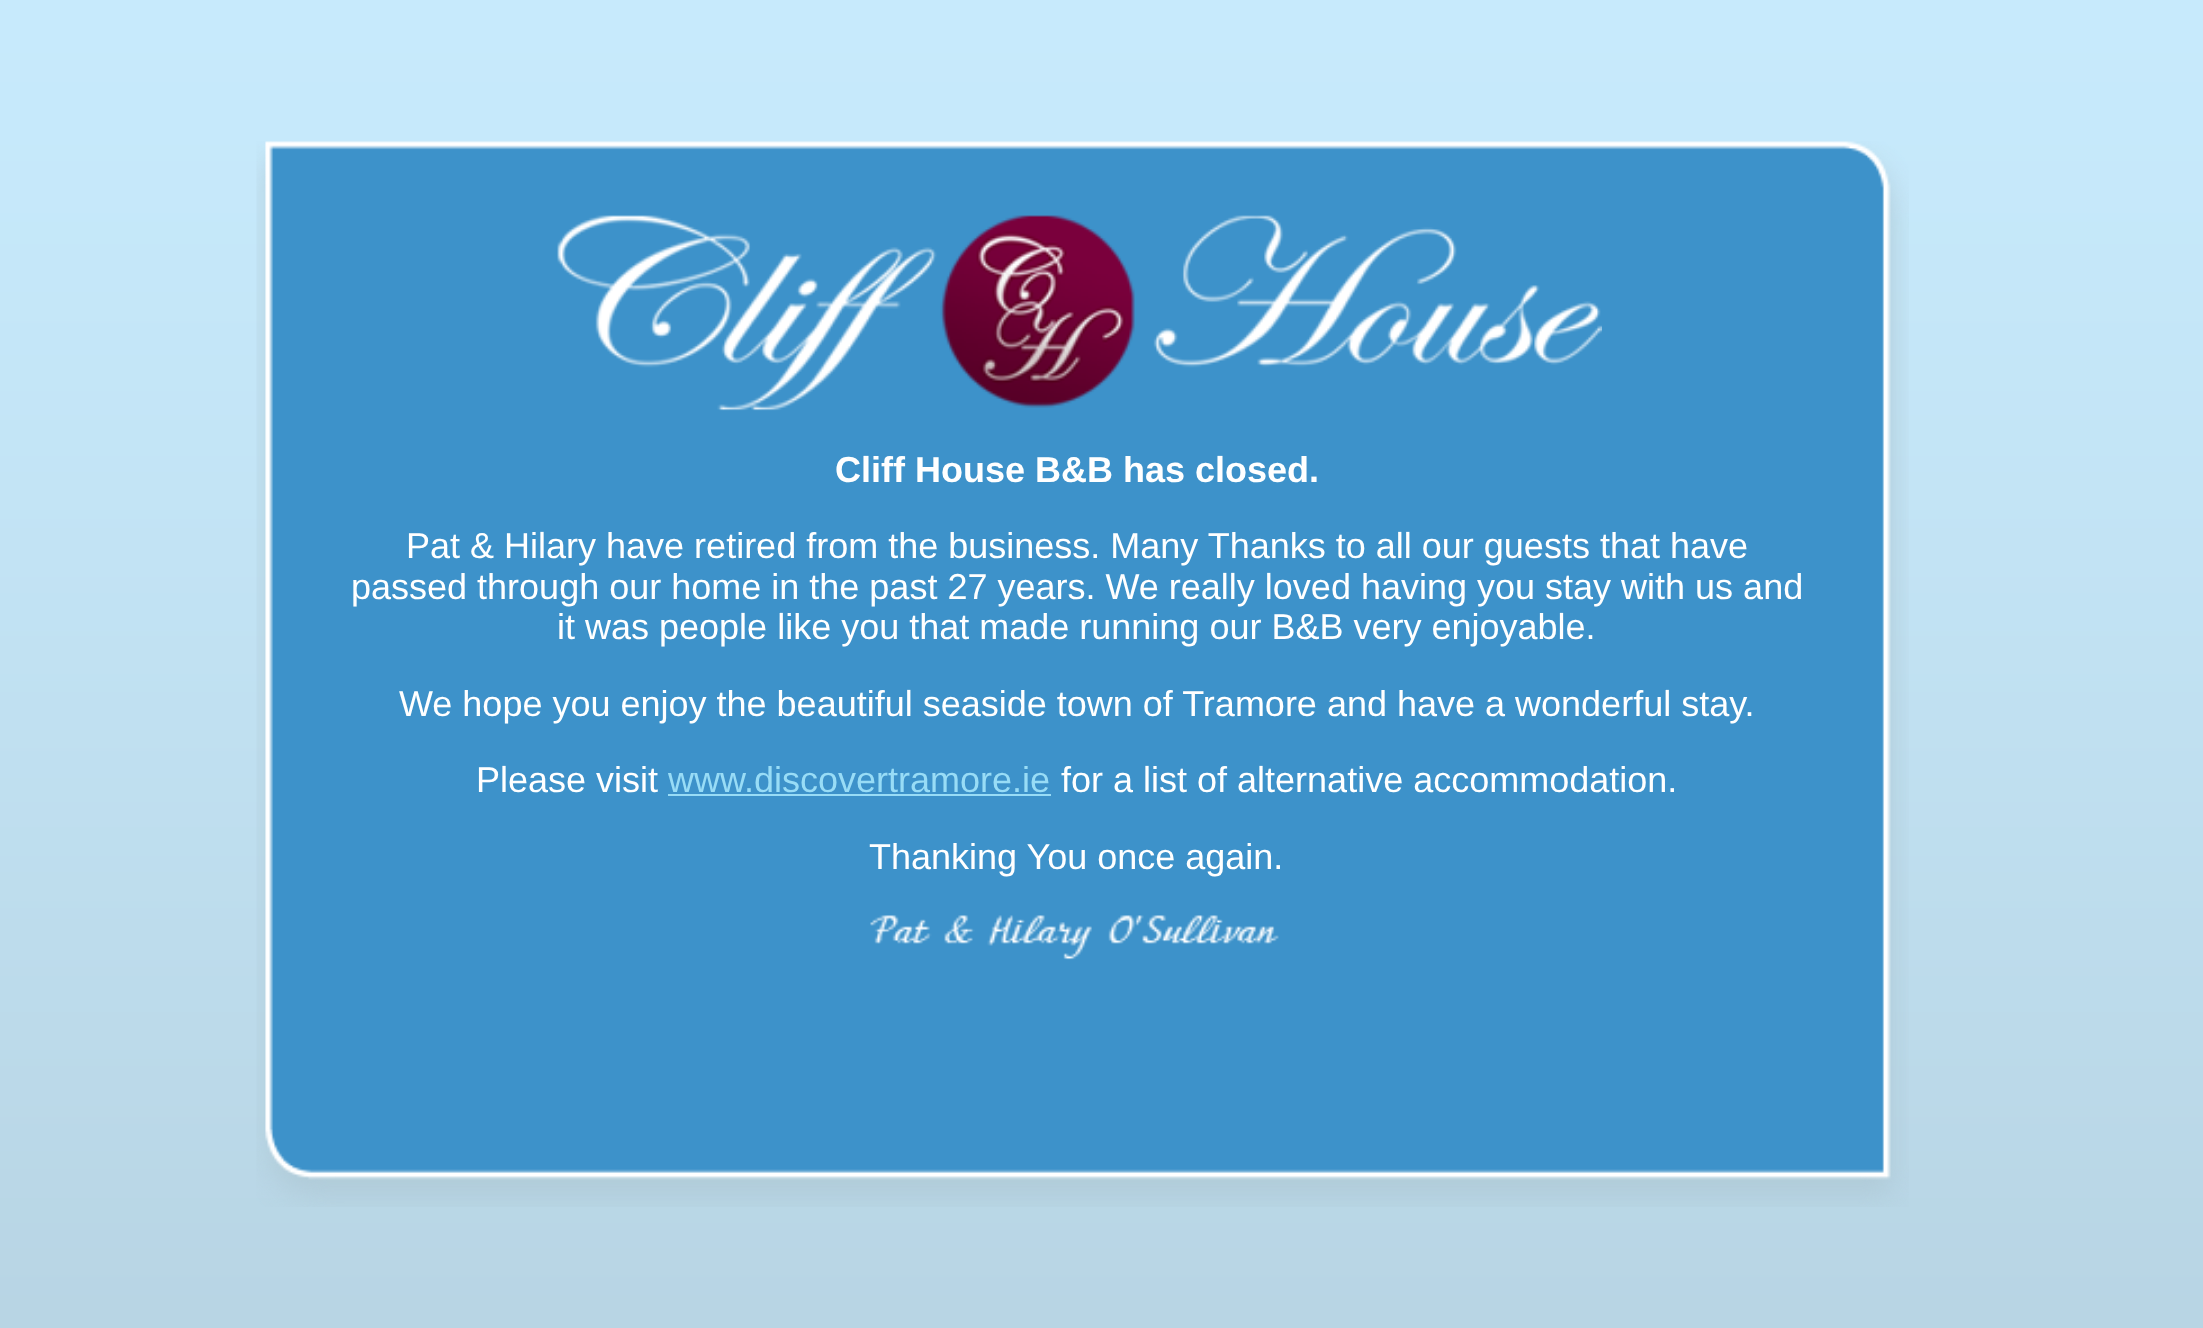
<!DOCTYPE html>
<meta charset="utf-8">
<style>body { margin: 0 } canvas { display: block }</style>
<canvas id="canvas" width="2203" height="1328"></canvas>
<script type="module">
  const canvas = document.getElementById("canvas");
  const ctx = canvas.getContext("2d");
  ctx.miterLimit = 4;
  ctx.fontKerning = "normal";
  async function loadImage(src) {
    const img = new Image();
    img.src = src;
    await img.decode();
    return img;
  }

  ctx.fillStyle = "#ffffff";
  ctx.fillRect(0, 0, 2203, 1328);
  ctx.drawImage(await loadImage("img1.png"), 0, 0, 2203, 1328);
  ctx.drawImage(await loadImage("img2.png"), 256, 141, 1653, 1066);
  ctx.drawImage(await loadImage("img3.png"), 557, 215, 1045, 196);
  ctx.font = "bold 36px Liberation Sans";
  ctx.fillText("Cliff House B&B has closed.", 835, 482);
  ctx.font = "36px Liberation Sans";
  ctx.fillText("Pat & Hilary have retired from the business. Many Thanks to all our guests that have", 406, 558);
  ctx.fillText("passed through our home in the past 27 years. We really loved having you stay with us and", 351, 599);
  ctx.fillText("it was people like you that made running our B&B very enjoyable.", 557, 639);
  ctx.fillText("We hope you enjoy the beautiful seaside town of Tramore and have a wonderful stay.", 399, 716);
  ctx.fillText("Please visit", 476, 792);
  ctx.fillStyle = "#98dcf6";
  ctx.fillText("www.discovertramore.ie", 668, 792);
  ctx.fillRect(668, 794, 383, 2);
  ctx.fillStyle = "#ffffff";
  ctx.fillText("for a list of alternative accommodation.", 1061, 792);
  ctx.fillText("Thanking You once again.", 869, 869);
  ctx.drawImage(await loadImage("img4.png"), 870, 915, 409, 45);
</script>
